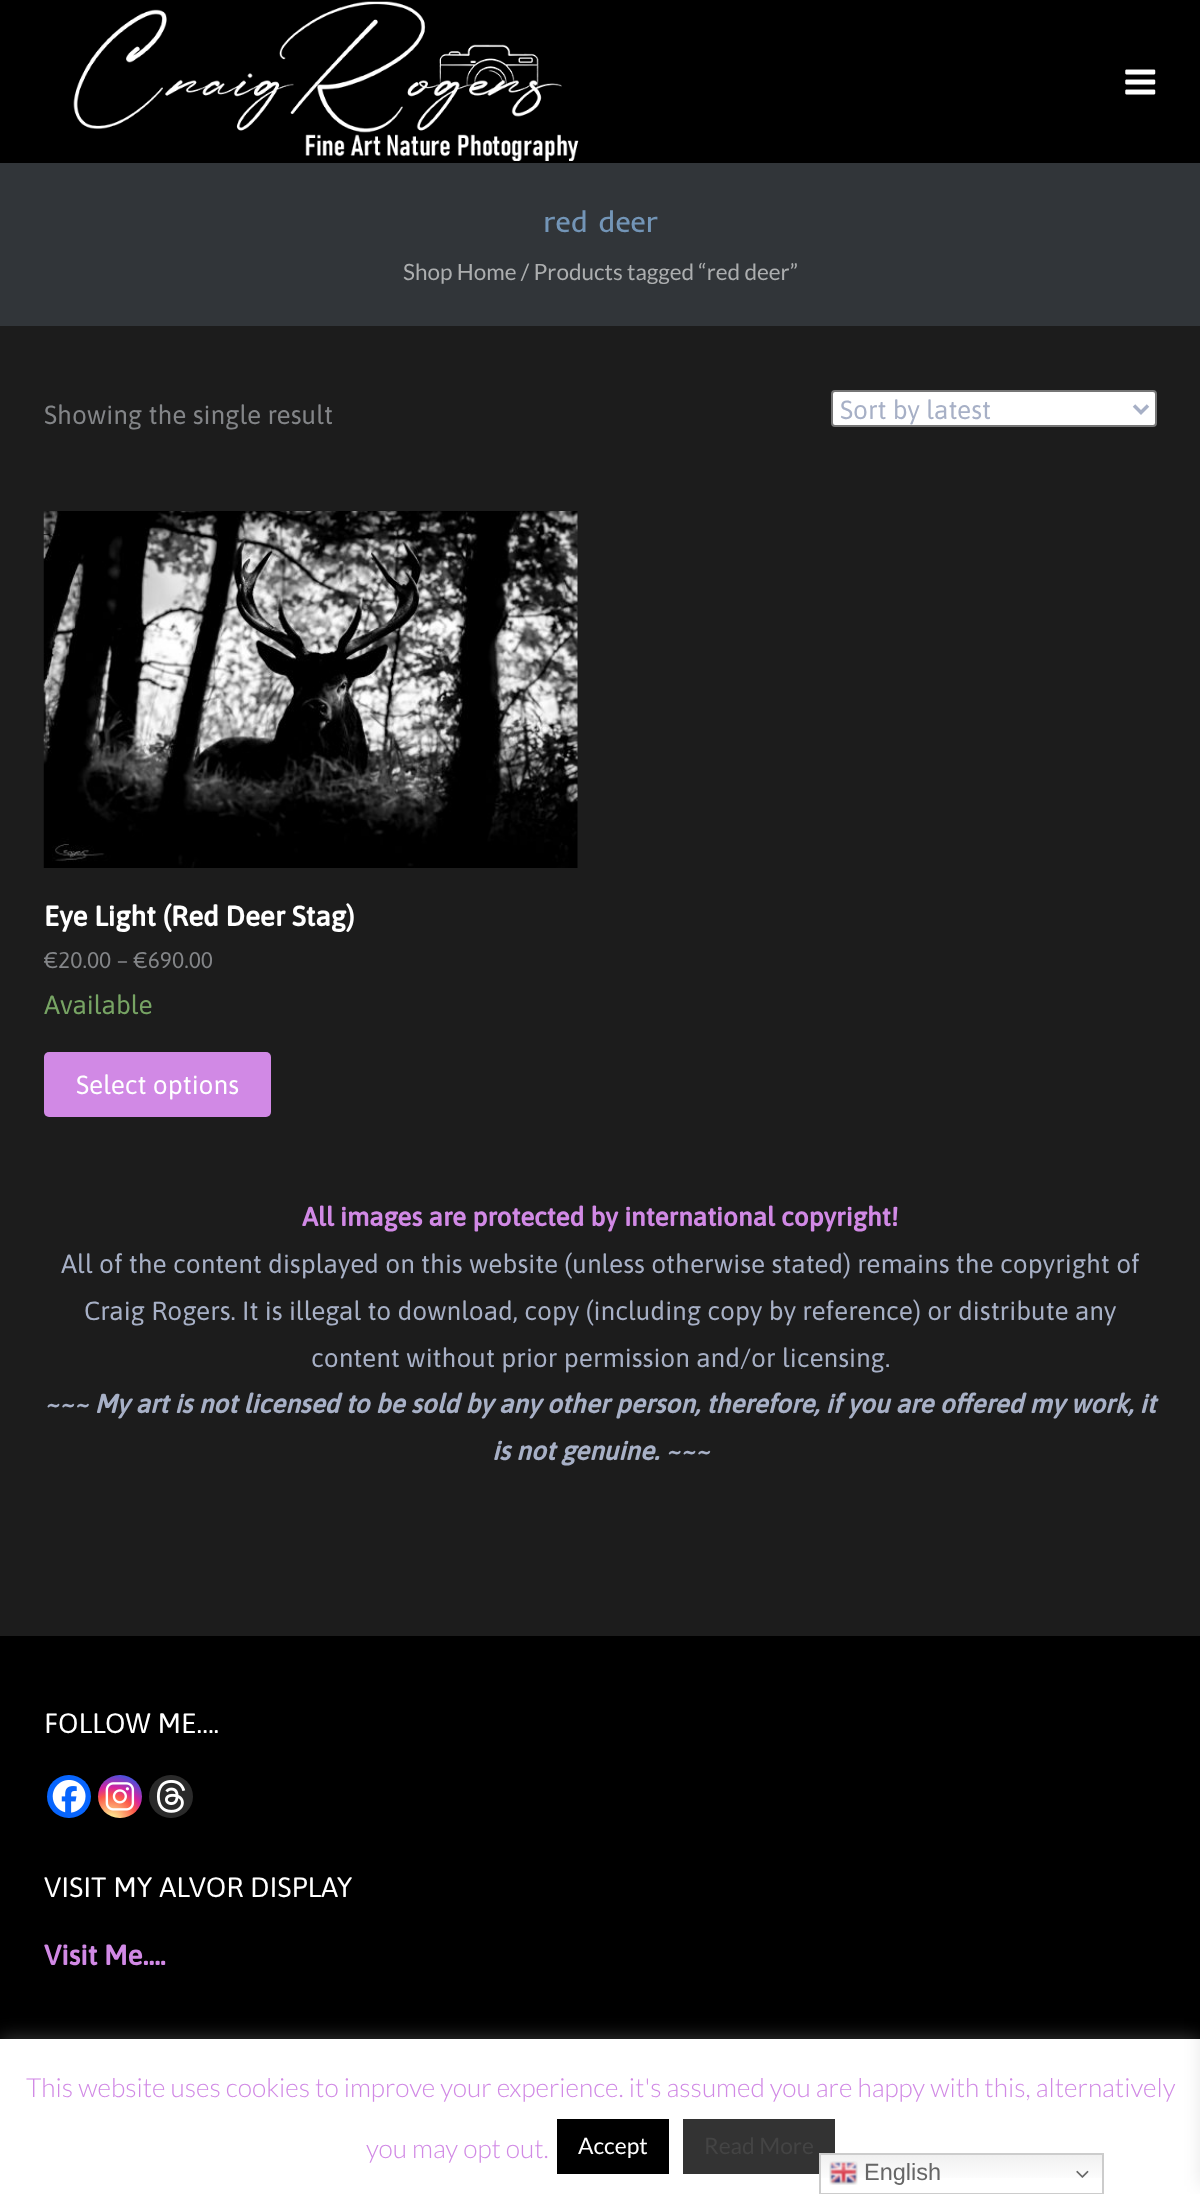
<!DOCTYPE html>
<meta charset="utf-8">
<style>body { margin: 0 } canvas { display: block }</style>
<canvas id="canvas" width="1200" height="2194"></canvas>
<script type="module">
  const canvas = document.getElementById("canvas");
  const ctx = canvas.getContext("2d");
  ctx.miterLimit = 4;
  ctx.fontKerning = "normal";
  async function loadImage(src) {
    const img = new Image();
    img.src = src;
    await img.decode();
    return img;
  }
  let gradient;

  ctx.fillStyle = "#1c1c1c";
  ctx.fillRect(0, 0, 1200, 2194);
  ctx.fillStyle = "#000000";
  ctx.fillRect(0, 0, 1200, 163);
  ctx.drawImage(await loadImage("img1.png"), 73, 1, 506, 160);
  ctx.drawImage(await loadImage("img2.png"), 1125, 69, 31, 26);
  ctx.fillStyle = "#313539";
  ctx.fillRect(0, 163, 1200, 163);
  ctx.font = "30px Inder";
  ctx.fillStyle = "#7395b7";
  ctx.fillText("red deer", 543, 232);
  ctx.font = "22.5px Lato";
  ctx.fillStyle = "#acaeaf";
  ctx.fillText("Shop Home / Products tagged “red deer”", 403, 280);
  ctx.font = "26.25px Asap";
  ctx.fillStyle = "#838588";
  ctx.fillText("Showing the single result", 44, 424);
  ctx.fillStyle = "#ffffff";
  ctx.beginPath();
  ctx.roundRect(832, 391, 324, 35, 3);
  ctx.fill();
  ctx.strokeStyle = "#767676";
  ctx.lineWidth = 2;
  ctx.stroke();
  ctx.beginPath();
  ctx.moveTo(1134, 405.5);
  ctx.lineTo(1141, 412.5);
  ctx.lineTo(1148, 405.5);
  ctx.strokeStyle = "#a7b0c6";
  ctx.lineWidth = 3.5;
  ctx.stroke();
  ctx.fillStyle = "#a7b0c6";
  ctx.fillText("Sort by latest", 840, 419);
  ctx.drawImage(await loadImage("img3.png"), 43, 511, 535, 357);
  ctx.font = "bold 28px Asap";
  ctx.fillStyle = "#ffffff";
  ctx.fillText("Eye Light (Red Deer Stag)", 44, 926);
  ctx.font = "22.75px Asap";
  ctx.fillStyle = "#838588";
  ctx.fillText("€20.00 – €690.00", 44, 968);
  ctx.font = "26.25px Asap";
  ctx.fillStyle = "#77a464";
  ctx.fillText("Available", 44, 1014);
  ctx.fillStyle = "#d189e5";
  ctx.beginPath();
  ctx.roundRect(44, 1052, 227, 65, 5);
  ctx.fill();
  ctx.fillStyle = "#ffffff";
  ctx.fillText("Select options", 76, 1094);
  ctx.font = "bold 26.25px Asap";
  ctx.fillStyle = "#d189e5";
  ctx.fillText("All images are protected by international copyright!", 302, 1226);
  ctx.font = "26.25px Asap";
  ctx.fillStyle = "#a7b0c6";
  ctx.fillText("All of the content displayed on this website (unless otherwise stated) remains the copyright of", 61, 1273);
  ctx.fillText("Craig Rogers. It is illegal to download, copy (including copy by reference) or distribute any", 84, 1320);
  ctx.fillText("content without prior permission and/or licensing.", 311, 1367);
  ctx.font = "italic bold 26.25px Asap";
  ctx.fillText("~~~ My art is not licensed to be sold by any other person, therefore, if you are offered my work, it", 44, 1413);
  ctx.fillText("is not genuine. ~~~", 492, 1460);
  ctx.fillStyle = "#000000";
  ctx.fillRect(0, 1636, 1200, 403);
  ctx.font = "28px Asap";
  ctx.fillStyle = "#ffffff";
  ctx.fillText("FOLLOW ME….", 44, 1733);
  ctx.fillStyle = "#0765fe";
  ctx.beginPath();
  ctx.roundRect(47, 1775, 44, 43, 21.5);
  ctx.fill();
  ctx.drawImage(await loadImage("img4.png"), 52, 1780, 34, 33);
  gradient = ctx.createRadialGradient(111, 1821, 0, 111, 1821, 56);
  gradient.addColorStop(0, "#fdf497");
  gradient.addColorStop(0.05, "#fdf497");
  gradient.addColorStop(0.45, "#fd5949");
  gradient.addColorStop(0.6, "#d6249f");
  gradient.addColorStop(0.9, "#285aeb");
  ctx.fillStyle = gradient;
  ctx.beginPath();
  ctx.roundRect(98, 1775, 44, 43, 21.5);
  ctx.fill();
  ctx.drawImage(await loadImage("img5.png"), 105, 1782, 30, 29);
  ctx.fillStyle = "#2a2a2a";
  ctx.beginPath();
  ctx.roundRect(149, 1775, 44, 43, 21.5);
  ctx.fill();
  ctx.drawImage(await loadImage("img6.png"), 156, 1780, 30, 33);
  ctx.fillStyle = "#ffffff";
  ctx.fillText("VISIT MY ALVOR DISPLAY", 44, 1897);
  ctx.font = "bold 28px Asap";
  ctx.fillStyle = "#d189e5";
  ctx.fillText("Visit Me….", 44, 1965);
  ctx.fillStyle = "rgba(172, 171, 171, 0.3)";
  ctx.filter = "blur(9px)";
  ctx.beginPath();
  ctx.rect(0, 2037, 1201, 156);
  ctx.fill();
  ctx.filter = "none";
  ctx.fillStyle = "#ffffff";
  ctx.fillRect(0, 2039, 1200, 155);
  ctx.font = "300 26.25px Lato";
  ctx.fillStyle = "#d189e5";
  ctx.fillText("This website uses cookies to improve your experience. it's assumed you are happy with this, alternatively", 26, 2097);
  ctx.fillText("you may opt out.", 366, 2158);
  ctx.fillStyle = "#000000";
  ctx.fillRect(557, 2119, 112, 55);
  ctx.font = "22.75px Lato";
  ctx.fillStyle = "#ffffff";
  ctx.fillText("Accept", 578, 2154);
  ctx.fillStyle = "#333333";
  ctx.fillRect(683, 2119, 152, 55);
  ctx.fillStyle = "#444444";
  ctx.fillText("Read More", 704, 2154);
  ctx.fillStyle = "rgba(0, 0, 0, 0.1)";
  ctx.filter = "blur(9px)";
  ctx.beginPath();
  ctx.rect(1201, 1948, 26, 238);
  ctx.fill();
  ctx.filter = "none";
  gradient = ctx.createLinearGradient(962, 2153, 962, 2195);
  gradient.addColorStop(0, "#efefef");
  gradient.addColorStop(0.7, "#ffffff");
  ctx.fillStyle = gradient;
  ctx.fillRect(821, 2155, 281, 23);
  ctx.strokeStyle = "#cccccc";
  ctx.lineWidth = 2;
  ctx.strokeRect(820, 2154, 283, 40);
  ctx.drawImage(await loadImage("img7.png"), 829, 2161, 29, 24);
  ctx.font = "23.5px Liberation Sans";
  ctx.fillStyle = "#666666";
  ctx.fillText("English", 864, 2180);
  ctx.drawImage(await loadImage("img8.png"), 1076, 2170, 13, 8);
</script>
